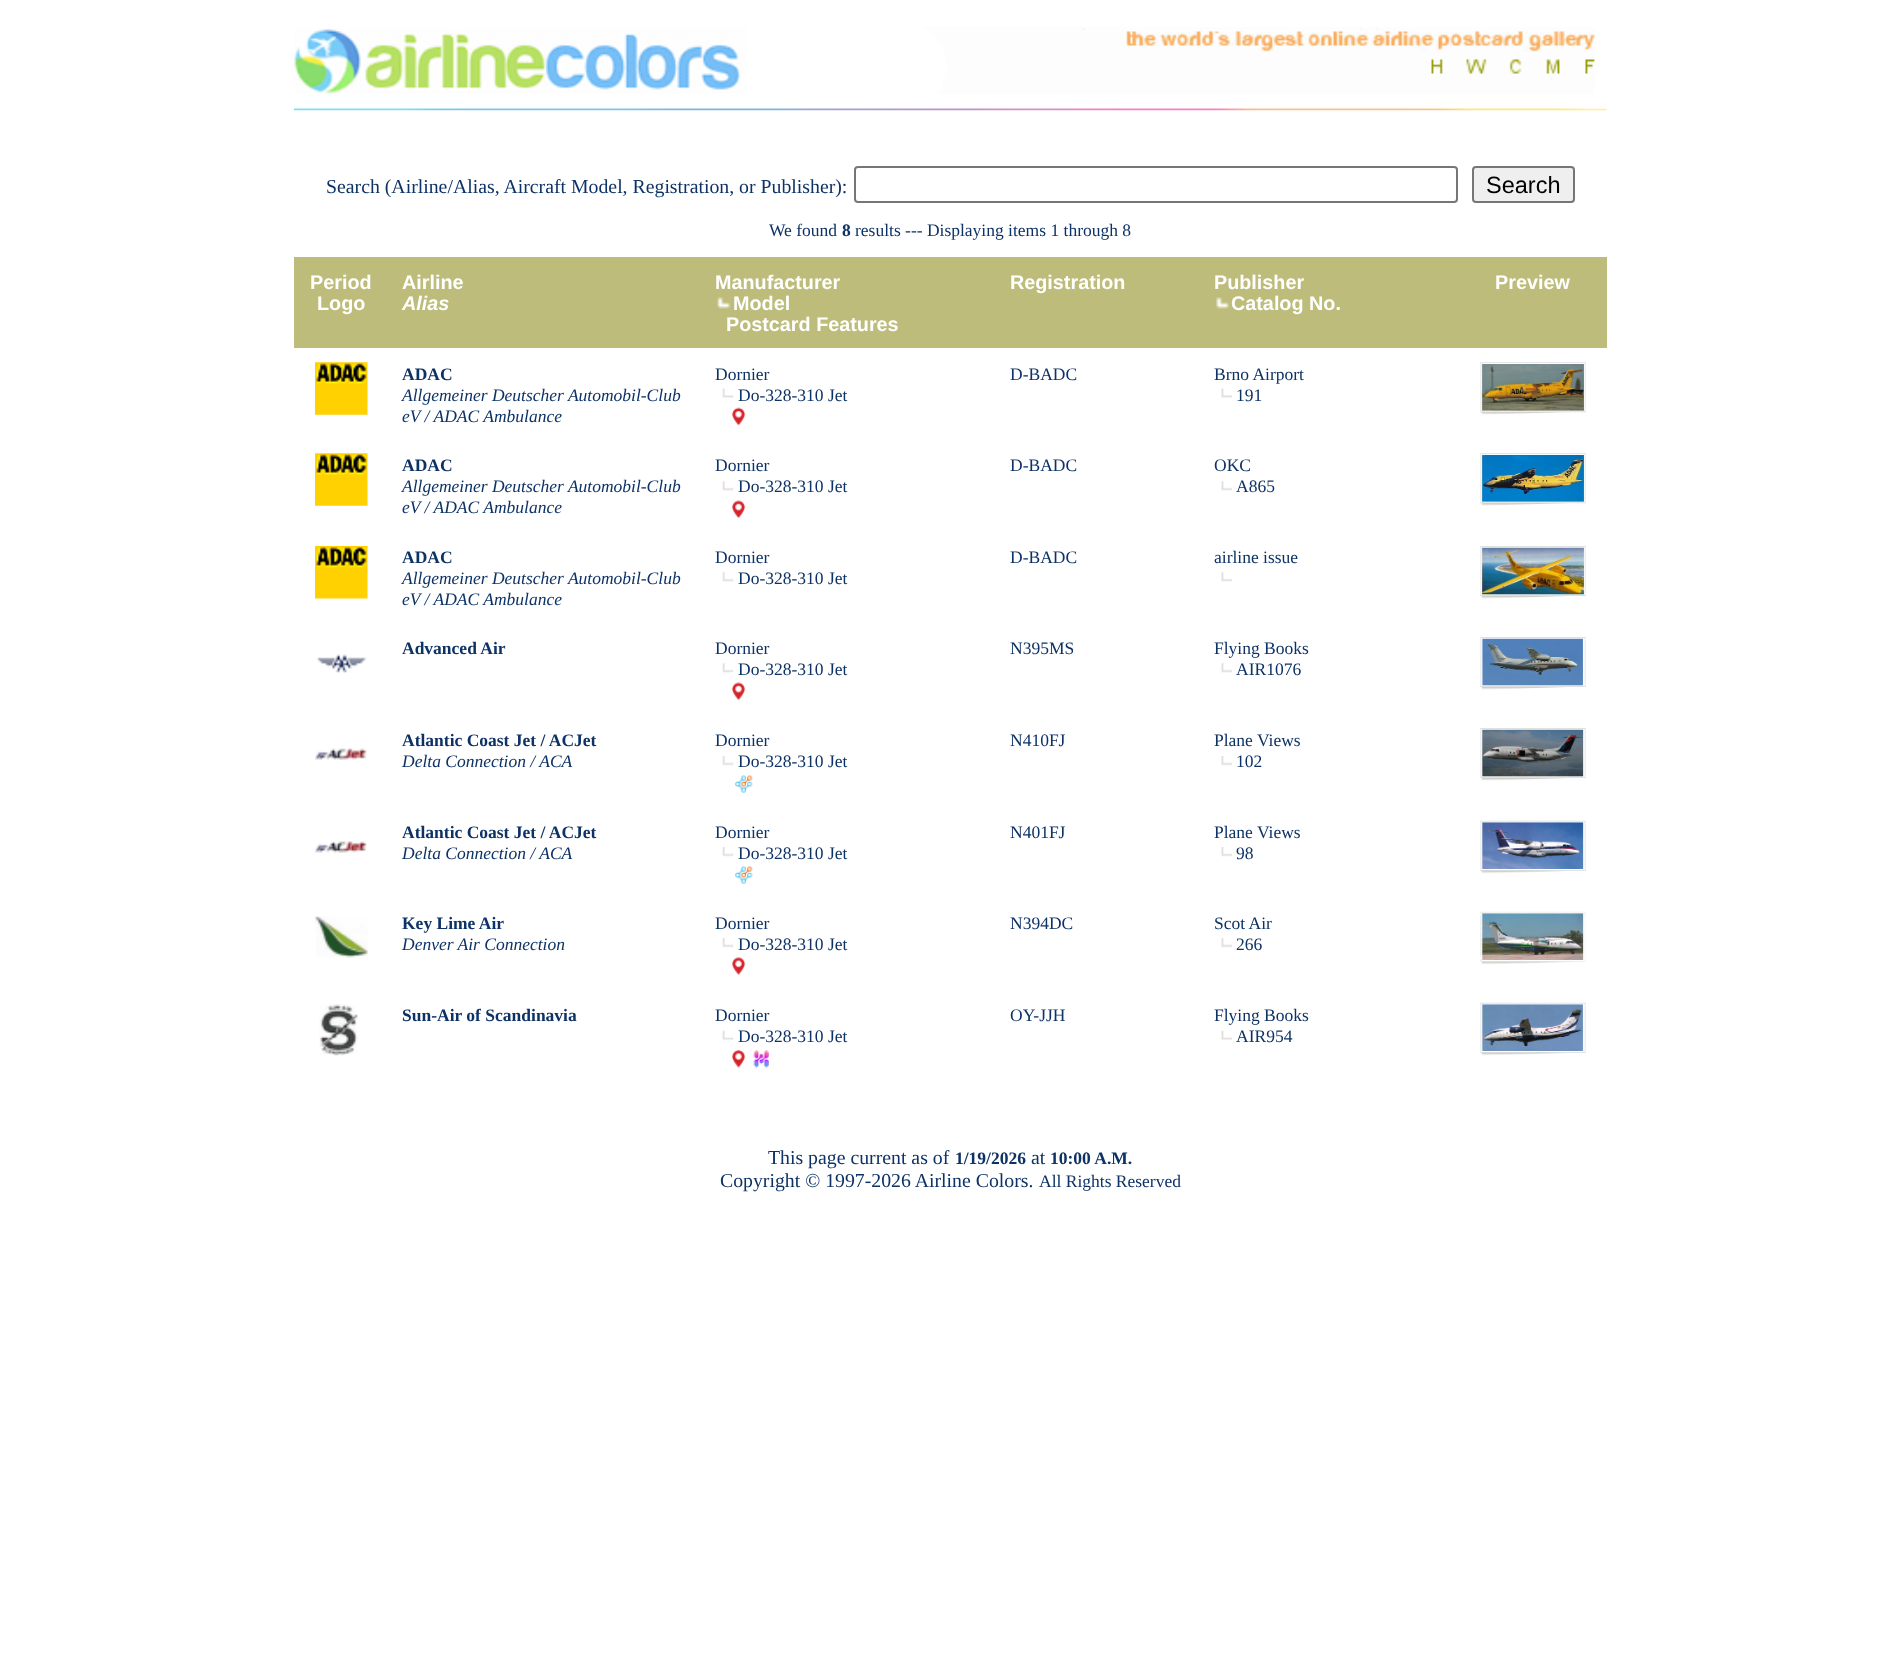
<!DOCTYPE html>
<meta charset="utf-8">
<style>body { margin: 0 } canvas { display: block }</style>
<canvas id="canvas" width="1900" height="1662"></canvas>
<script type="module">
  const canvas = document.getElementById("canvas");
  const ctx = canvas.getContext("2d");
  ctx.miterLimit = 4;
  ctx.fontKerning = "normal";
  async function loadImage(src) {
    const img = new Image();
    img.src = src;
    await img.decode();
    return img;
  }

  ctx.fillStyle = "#ffffff";
  ctx.fillRect(0, 0, 1900, 1662);
  ctx.drawImage(await loadImage("img1.png"), 294, 27, 1301, 68);
  ctx.drawImage(await loadImage("img2.png"), 294, 108, 1313, 3);
  ctx.font = "19.8px Liberation Serif";
  ctx.fillStyle = "#0d3266";
  ctx.fillText("Search (Airline/Alias, Aircraft Model, Registration, or Publisher):", 326, 193);
  ctx.beginPath();
  ctx.roundRect(855, 167, 602, 35, 3);
  ctx.strokeStyle = "#767676";
  ctx.lineWidth = 2;
  ctx.stroke();
  ctx.fillStyle = "#efefef";
  ctx.beginPath();
  ctx.roundRect(1473, 167, 101, 35, 3);
  ctx.fill();
  ctx.stroke();
  ctx.font = "23.5px Liberation Sans";
  ctx.fillStyle = "#000000";
  ctx.fillText("Search", 1486, 193);
  ctx.font = "17.5px Liberation Serif";
  ctx.fillStyle = "#0d3266";
  ctx.fillText("We found", 769, 236);
  ctx.font = "bold 17.5px Liberation Serif";
  ctx.fillText("8", 842, 236);
  ctx.font = "17.5px Liberation Serif";
  ctx.fillText("results --- Displaying items 1 through 8", 855, 236);
  ctx.fillStyle = "#bdbc7b";
  ctx.fillRect(294, 257, 1313, 91);
  ctx.font = "bold 19.8px Liberation Sans";
  ctx.fillStyle = "#ffffff";
  ctx.fillText("Period", 310, 289);
  ctx.fillText("Logo", 317, 310);
  ctx.fillText("Airline", 402, 289);
  ctx.font = "italic bold 19.8px Liberation Sans";
  ctx.fillText("Alias", 402, 310);
  ctx.font = "bold 19.8px Liberation Sans";
  ctx.fillText("Manufacturer", 715, 289);
  ctx.drawImage(await loadImage("img3.png"), 717, 297, 14, 12);
  ctx.fillText("Model", 733, 310);
  ctx.fillText("Postcard Features", 726, 331);
  ctx.fillText("Registration", 1010, 289);
  ctx.fillText("Publisher", 1214, 289);
  ctx.drawImage(await loadImage("img4.png"), 1216, 297, 13, 12);
  ctx.fillText("Catalog No.", 1231, 310);
  ctx.fillText("Preview", 1495, 289);
  ctx.drawImage(await loadImage("img5.png"), 315, 362, 53, 53);
  ctx.font = "bold 17.5px Liberation Serif";
  ctx.fillStyle = "#0d3266";
  ctx.fillText("ADAC", 402, 380);
  ctx.font = "italic 17.5px Liberation Serif";
  ctx.fillText("Allgemeiner Deutscher Automobil-Club", 402, 401);
  ctx.fillText("eV / ADAC Ambulance", 402, 422);
  ctx.font = "17.5px Liberation Serif";
  ctx.fillText("Dornier", 715, 380);
  ctx.drawImage(await loadImage("img6.png"), 722, 388, 12, 10);
  ctx.fillText("Do-328-310 Jet", 738, 401);
  ctx.drawImage(await loadImage("img7.png"), 731, 407, 15, 19);
  ctx.fillText("D-BADC", 1010, 380);
  ctx.fillText("Brno Airport", 1214, 380);
  ctx.drawImage(await loadImage("img8.png"), 1221, 388, 11, 10);
  ctx.fillText("191", 1236, 401);
  ctx.drawImage(await loadImage("img9.png"), 1480, 362, 106, 53);
  ctx.drawImage(await loadImage("img5.png"), 315, 453, 53, 53);
  ctx.font = "bold 17.5px Liberation Serif";
  ctx.fillText("ADAC", 402, 471);
  ctx.font = "italic 17.5px Liberation Serif";
  ctx.fillText("Allgemeiner Deutscher Automobil-Club", 402, 492);
  ctx.fillText("eV / ADAC Ambulance", 402, 513);
  ctx.font = "17.5px Liberation Serif";
  ctx.fillText("Dornier", 715, 471);
  ctx.drawImage(await loadImage("img10.png"), 722, 481, 12, 10);
  ctx.fillText("Do-328-310 Jet", 738, 492);
  ctx.drawImage(await loadImage("img11.png"), 731, 500, 15, 18);
  ctx.fillText("D-BADC", 1010, 471);
  ctx.fillText("OKC", 1214, 471);
  ctx.drawImage(await loadImage("img12.png"), 1221, 481, 11, 10);
  ctx.fillText("A865", 1236, 492);
  ctx.drawImage(await loadImage("img13.png"), 1480, 453, 106, 53);
  ctx.drawImage(await loadImage("img14.png"), 315, 546, 53, 53);
  ctx.font = "bold 17.5px Liberation Serif";
  ctx.fillText("ADAC", 402, 563);
  ctx.font = "italic 17.5px Liberation Serif";
  ctx.fillText("Allgemeiner Deutscher Automobil-Club", 402, 584);
  ctx.fillText("eV / ADAC Ambulance", 402, 605);
  ctx.font = "17.5px Liberation Serif";
  ctx.fillText("Dornier", 715, 563);
  ctx.drawImage(await loadImage("img10.png"), 722, 572, 12, 10);
  ctx.fillText("Do-328-310 Jet", 738, 584);
  ctx.fillText("D-BADC", 1010, 563);
  ctx.fillText("airline issue", 1214, 563);
  ctx.drawImage(await loadImage("img12.png"), 1221, 572, 11, 10);
  ctx.drawImage(await loadImage("img15.png"), 1480, 546, 106, 53);
  ctx.font = "bold 17.5px Liberation Serif";
  ctx.fillText("Advanced Air", 402, 654);
  ctx.font = "17.5px Liberation Serif";
  ctx.fillText("Dornier", 715, 654);
  ctx.drawImage(await loadImage("img10.png"), 722, 663, 12, 10);
  ctx.fillText("Do-328-310 Jet", 738, 675);
  ctx.drawImage(await loadImage("img11.png"), 731, 682, 15, 18);
  ctx.fillText("N395MS", 1010, 654);
  ctx.fillText("Flying Books", 1214, 654);
  ctx.drawImage(await loadImage("img12.png"), 1221, 663, 11, 10);
  ctx.fillText("AIR1076", 1236, 675);
  ctx.drawImage(await loadImage("img16.png"), 1480, 637, 106, 53);
  ctx.drawImage(await loadImage("img17.png"), 316, 654, 51, 19);
  ctx.font = "bold 17.5px Liberation Serif";
  ctx.fillText("Atlantic Coast Jet / ACJet", 402, 746);
  ctx.font = "italic 17.5px Liberation Serif";
  ctx.fillText("Delta Connection / ACA", 402, 767);
  ctx.font = "17.5px Liberation Serif";
  ctx.fillText("Dornier", 715, 746);
  ctx.drawImage(await loadImage("img18.png"), 722, 756, 12, 10);
  ctx.fillText("Do-328-310 Jet", 738, 767);
  ctx.drawImage(await loadImage("img19.png"), 735, 775, 18, 18);
  ctx.fillText("N410FJ", 1010, 746);
  ctx.fillText("Plane Views", 1214, 746);
  ctx.drawImage(await loadImage("img20.png"), 1221, 756, 11, 10);
  ctx.fillText("102", 1236, 767);
  ctx.drawImage(await loadImage("img21.png"), 1480, 728, 106, 53);
  ctx.drawImage(await loadImage("img22.png"), 315, 748, 52, 12);
  ctx.font = "bold 17.5px Liberation Serif";
  ctx.fillText("Atlantic Coast Jet / ACJet", 402, 838);
  ctx.font = "italic 17.5px Liberation Serif";
  ctx.fillText("Delta Connection / ACA", 402, 859);
  ctx.font = "17.5px Liberation Serif";
  ctx.fillText("Dornier", 715, 838);
  ctx.drawImage(await loadImage("img18.png"), 722, 847, 12, 10);
  ctx.fillText("Do-328-310 Jet", 738, 859);
  ctx.drawImage(await loadImage("img19.png"), 735, 866, 18, 18);
  ctx.fillText("N401FJ", 1010, 838);
  ctx.fillText("Plane Views", 1214, 838);
  ctx.drawImage(await loadImage("img20.png"), 1221, 847, 11, 10);
  ctx.fillText("98", 1236, 859);
  ctx.drawImage(await loadImage("img23.png"), 1480, 820, 106, 54);
  ctx.drawImage(await loadImage("img24.png"), 315, 841, 52, 12);
  ctx.drawImage(await loadImage("img25.png"), 315, 916, 53, 42);
  ctx.font = "bold 17.5px Liberation Serif";
  ctx.fillText("Key Lime Air", 402, 929);
  ctx.font = "italic 17.5px Liberation Serif";
  ctx.fillText("Denver Air Connection", 402, 950);
  ctx.font = "17.5px Liberation Serif";
  ctx.fillText("Dornier", 715, 929);
  ctx.drawImage(await loadImage("img18.png"), 722, 938, 12, 10);
  ctx.fillText("Do-328-310 Jet", 738, 950);
  ctx.drawImage(await loadImage("img26.png"), 731, 957, 15, 18);
  ctx.fillText("N394DC", 1010, 929);
  ctx.fillText("Scot Air", 1214, 929);
  ctx.drawImage(await loadImage("img20.png"), 1221, 938, 11, 10);
  ctx.fillText("266", 1236, 950);
  ctx.drawImage(await loadImage("img27.png"), 1480, 911, 106, 54);
  ctx.drawImage(await loadImage("img28.png"), 319, 1004, 39, 52);
  ctx.font = "bold 17.5px Liberation Serif";
  ctx.fillText("Sun-Air of Scandinavia", 402, 1021);
  ctx.font = "17.5px Liberation Serif";
  ctx.fillText("Dornier", 715, 1021);
  ctx.drawImage(await loadImage("img29.png"), 722, 1030, 12, 10);
  ctx.fillText("Do-328-310 Jet", 738, 1042);
  ctx.drawImage(await loadImage("img30.png"), 731, 1050, 15, 18);
  ctx.drawImage(await loadImage("img31.png"), 753, 1050, 16, 18);
  ctx.fillText("OY-JJH", 1010, 1021);
  ctx.fillText("Flying Books", 1214, 1021);
  ctx.drawImage(await loadImage("img32.png"), 1221, 1030, 11, 10);
  ctx.fillText("AIR954", 1236, 1042);
  ctx.drawImage(await loadImage("img33.png"), 1480, 1002, 106, 54);
  ctx.font = "19.8px Liberation Serif";
  ctx.fillText("This page current as of", 768, 1164);
  ctx.font = "bold 17.5px Liberation Serif";
  ctx.fillText("1/19/2026", 955, 1164);
  ctx.font = "19.8px Liberation Serif";
  ctx.fillText("at", 1031, 1164);
  ctx.font = "bold 17.5px Liberation Serif";
  ctx.fillText("10:00 A.M.", 1050, 1164);
  ctx.font = "19.8px Liberation Serif";
  ctx.fillText("Copyright © 1997-2026 Airline Colors.", 720, 1187);
  ctx.font = "17.5px Liberation Serif";
  ctx.fillText("All Rights Reserved", 1039, 1187);
</script>
